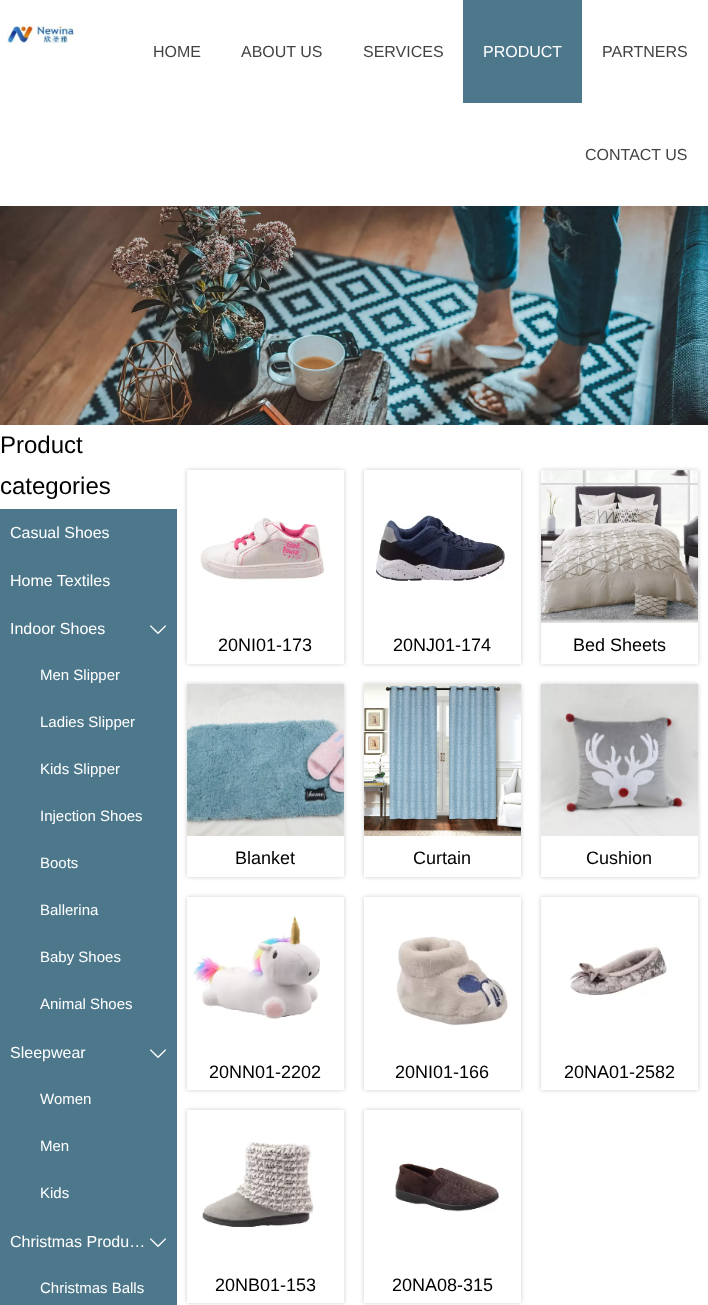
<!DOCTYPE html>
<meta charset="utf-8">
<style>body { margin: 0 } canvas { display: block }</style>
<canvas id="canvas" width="708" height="1305"></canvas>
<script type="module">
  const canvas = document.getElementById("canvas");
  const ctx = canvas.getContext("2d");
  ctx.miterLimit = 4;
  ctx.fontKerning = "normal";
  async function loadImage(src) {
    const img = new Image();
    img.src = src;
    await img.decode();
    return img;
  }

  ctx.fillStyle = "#ffffff";
  ctx.fillRect(0, 0, 708, 1305);
  ctx.drawImage(await loadImage("img1.png"), 7, 25, 68, 19);
  ctx.font = "16px Liberation Sans";
  ctx.fillStyle = "#434343";
  ctx.fillText("HOME", 153, 57);
  ctx.fillText("ABOUT US", 241, 57);
  ctx.fillText("SERVICES", 363, 57);
  ctx.fillStyle = "#4d788c";
  ctx.fillRect(463, 0, 119, 103);
  ctx.fillStyle = "#ffffff";
  ctx.fillText("PRODUCT", 483, 57);
  ctx.fillStyle = "#434343";
  ctx.fillText("PARTNERS", 602, 57);
  ctx.fillText("CONTACT US", 585, 160);
  ctx.drawImage(await loadImage("img2.png"), 0, 206, 708, 219);
  ctx.font = "24px Liberation Sans";
  ctx.fillStyle = "#000000";
  ctx.fillText("Product", 0, 453);
  ctx.fillText("categories", 0, 494);
  ctx.fillStyle = "#4d788c";
  ctx.fillRect(0, 509, 177, 796);
  ctx.font = "16px Liberation Sans";
  ctx.fillStyle = "#ffffff";
  ctx.fillText("Casual Shoes", 10, 538);
  ctx.fillText("Home Textiles", 10, 586);
  ctx.fillText("Indoor Shoes", 10, 634);
  ctx.drawImage(await loadImage("img3.png"), 150, 625, 16, 9);
  ctx.font = "15px Liberation Sans";
  ctx.fillText("Men Slipper", 40, 680);
  ctx.fillText("Ladies Slipper", 40, 727);
  ctx.fillText("Kids Slipper", 40, 774);
  ctx.fillText("Injection Shoes", 40, 821);
  ctx.fillText("Boots", 40, 868);
  ctx.fillText("Ballerina", 40, 915);
  ctx.fillText("Baby Shoes", 40, 962);
  ctx.fillText("Animal Shoes", 40, 1009);
  ctx.font = "16px Liberation Sans";
  ctx.fillText("Sleepwear", 10, 1058);
  ctx.drawImage(await loadImage("img3.png"), 150, 1049, 16, 9);
  ctx.font = "15px Liberation Sans";
  ctx.fillText("Women", 40, 1104);
  ctx.fillText("Men", 40, 1151);
  ctx.fillText("Kids", 40, 1198);
  ctx.font = "16px Liberation Sans";
  ctx.fillText("Christmas Produ…", 10, 1247);
  ctx.drawImage(await loadImage("img3.png"), 150, 1238, 16, 9);
  ctx.font = "15px Liberation Sans";
  ctx.fillText("Christmas Balls", 40, 1293);
  ctx.save();
  ctx.beginPath();
  ctx.moveTo(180, 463);
  ctx.lineTo(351, 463);
  ctx.lineTo(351, 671);
  ctx.lineTo(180, 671);
  ctx.closePath();
  ctx.moveTo(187, 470);
  ctx.lineTo(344, 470);
  ctx.lineTo(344, 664);
  ctx.lineTo(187, 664);
  ctx.closePath();
  ctx.clip("evenodd");
  ctx.fillStyle = "#cccccc";
  ctx.filter = "blur(2px)";
  ctx.beginPath();
  ctx.rect(187, 470, 157, 194);
  ctx.fill();
  ctx.filter = "none";
  ctx.restore();
  ctx.drawImage(await loadImage("img4.png"), 200, 517, 125, 63);
  ctx.font = "18px Liberation Sans";
  ctx.fillStyle = "#000000";
  ctx.fillText("20NI01-173", 218, 651);
  ctx.save();
  ctx.beginPath();
  ctx.moveTo(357, 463);
  ctx.lineTo(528, 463);
  ctx.lineTo(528, 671);
  ctx.lineTo(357, 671);
  ctx.closePath();
  ctx.moveTo(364, 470);
  ctx.lineTo(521, 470);
  ctx.lineTo(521, 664);
  ctx.lineTo(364, 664);
  ctx.closePath();
  ctx.clip("evenodd");
  ctx.fillStyle = "#cccccc";
  ctx.filter = "blur(2px)";
  ctx.beginPath();
  ctx.rect(364, 470, 157, 194);
  ctx.fill();
  ctx.filter = "none";
  ctx.restore();
  ctx.drawImage(await loadImage("img5.png"), 376, 515, 129, 66);
  ctx.fillText("20NJ01-174", 393, 651);
  ctx.save();
  ctx.beginPath();
  ctx.moveTo(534, 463);
  ctx.lineTo(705, 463);
  ctx.lineTo(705, 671);
  ctx.lineTo(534, 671);
  ctx.closePath();
  ctx.moveTo(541, 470);
  ctx.lineTo(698, 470);
  ctx.lineTo(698, 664);
  ctx.lineTo(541, 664);
  ctx.closePath();
  ctx.clip("evenodd");
  ctx.fillStyle = "#cccccc";
  ctx.filter = "blur(2px)";
  ctx.beginPath();
  ctx.rect(541, 470, 157, 194);
  ctx.fill();
  ctx.filter = "none";
  ctx.restore();
  ctx.drawImage(await loadImage("img6.png"), 541, 470, 157, 153);
  ctx.fillText("Bed Sheets", 573, 651);
  ctx.save();
  ctx.beginPath();
  ctx.moveTo(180, 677);
  ctx.lineTo(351, 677);
  ctx.lineTo(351, 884);
  ctx.lineTo(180, 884);
  ctx.closePath();
  ctx.moveTo(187, 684);
  ctx.lineTo(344, 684);
  ctx.lineTo(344, 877);
  ctx.lineTo(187, 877);
  ctx.closePath();
  ctx.clip("evenodd");
  ctx.fillStyle = "#cccccc";
  ctx.filter = "blur(2px)";
  ctx.beginPath();
  ctx.rect(187, 684, 157, 193);
  ctx.fill();
  ctx.filter = "none";
  ctx.restore();
  ctx.drawImage(await loadImage("img7.png"), 187, 684, 157, 152);
  ctx.fillText("Blanket", 235, 864);
  ctx.save();
  ctx.beginPath();
  ctx.moveTo(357, 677);
  ctx.lineTo(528, 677);
  ctx.lineTo(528, 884);
  ctx.lineTo(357, 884);
  ctx.closePath();
  ctx.moveTo(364, 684);
  ctx.lineTo(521, 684);
  ctx.lineTo(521, 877);
  ctx.lineTo(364, 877);
  ctx.closePath();
  ctx.clip("evenodd");
  ctx.fillStyle = "#cccccc";
  ctx.filter = "blur(2px)";
  ctx.beginPath();
  ctx.rect(364, 684, 157, 193);
  ctx.fill();
  ctx.filter = "none";
  ctx.restore();
  ctx.drawImage(await loadImage("img8.png"), 364, 684, 157, 152);
  ctx.fillText("Curtain", 413, 864);
  ctx.save();
  ctx.beginPath();
  ctx.moveTo(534, 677);
  ctx.lineTo(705, 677);
  ctx.lineTo(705, 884);
  ctx.lineTo(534, 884);
  ctx.closePath();
  ctx.moveTo(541, 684);
  ctx.lineTo(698, 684);
  ctx.lineTo(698, 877);
  ctx.lineTo(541, 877);
  ctx.closePath();
  ctx.clip("evenodd");
  ctx.fillStyle = "#cccccc";
  ctx.filter = "blur(2px)";
  ctx.beginPath();
  ctx.rect(541, 684, 157, 193);
  ctx.fill();
  ctx.filter = "none";
  ctx.restore();
  ctx.drawImage(await loadImage("img9.png"), 541, 684, 157, 152);
  ctx.fillText("Cushion", 586, 864);
  ctx.save();
  ctx.beginPath();
  ctx.moveTo(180, 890);
  ctx.lineTo(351, 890);
  ctx.lineTo(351, 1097);
  ctx.lineTo(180, 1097);
  ctx.closePath();
  ctx.moveTo(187, 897);
  ctx.lineTo(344, 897);
  ctx.lineTo(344, 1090);
  ctx.lineTo(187, 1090);
  ctx.closePath();
  ctx.clip("evenodd");
  ctx.fillStyle = "#cccccc";
  ctx.filter = "blur(2px)";
  ctx.beginPath();
  ctx.rect(187, 897, 157, 193);
  ctx.fill();
  ctx.filter = "none";
  ctx.restore();
  ctx.drawImage(await loadImage("img10.png"), 192, 916, 129, 103);
  ctx.fillText("20NN01-2202", 209, 1078);
  ctx.save();
  ctx.beginPath();
  ctx.moveTo(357, 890);
  ctx.lineTo(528, 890);
  ctx.lineTo(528, 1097);
  ctx.lineTo(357, 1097);
  ctx.closePath();
  ctx.moveTo(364, 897);
  ctx.lineTo(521, 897);
  ctx.lineTo(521, 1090);
  ctx.lineTo(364, 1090);
  ctx.closePath();
  ctx.clip("evenodd");
  ctx.fillStyle = "#cccccc";
  ctx.filter = "blur(2px)";
  ctx.beginPath();
  ctx.rect(364, 897, 157, 193);
  ctx.fill();
  ctx.filter = "none";
  ctx.restore();
  ctx.drawImage(await loadImage("img11.png"), 396, 936, 112, 90);
  ctx.fillText("20NI01-166", 395, 1078);
  ctx.save();
  ctx.beginPath();
  ctx.moveTo(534, 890);
  ctx.lineTo(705, 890);
  ctx.lineTo(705, 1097);
  ctx.lineTo(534, 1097);
  ctx.closePath();
  ctx.moveTo(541, 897);
  ctx.lineTo(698, 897);
  ctx.lineTo(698, 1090);
  ctx.lineTo(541, 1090);
  ctx.closePath();
  ctx.clip("evenodd");
  ctx.fillStyle = "#cccccc";
  ctx.filter = "blur(2px)";
  ctx.beginPath();
  ctx.rect(541, 897, 157, 193);
  ctx.fill();
  ctx.filter = "none";
  ctx.restore();
  ctx.drawImage(await loadImage("img12.png"), 569, 946, 98, 50);
  ctx.fillText("20NA01-2582", 564, 1078);
  ctx.save();
  ctx.beginPath();
  ctx.moveTo(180, 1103);
  ctx.lineTo(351, 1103);
  ctx.lineTo(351, 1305);
  ctx.lineTo(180, 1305);
  ctx.closePath();
  ctx.moveTo(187, 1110);
  ctx.lineTo(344, 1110);
  ctx.lineTo(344, 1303);
  ctx.lineTo(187, 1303);
  ctx.closePath();
  ctx.clip("evenodd");
  ctx.fillStyle = "#cccccc";
  ctx.filter = "blur(2px)";
  ctx.beginPath();
  ctx.rect(187, 1110, 157, 193);
  ctx.fill();
  ctx.filter = "none";
  ctx.restore();
  ctx.drawImage(await loadImage("img13.png"), 202, 1142, 112, 86);
  ctx.fillText("20NB01-153", 215, 1291);
  ctx.save();
  ctx.beginPath();
  ctx.moveTo(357, 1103);
  ctx.lineTo(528, 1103);
  ctx.lineTo(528, 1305);
  ctx.lineTo(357, 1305);
  ctx.closePath();
  ctx.moveTo(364, 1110);
  ctx.lineTo(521, 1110);
  ctx.lineTo(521, 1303);
  ctx.lineTo(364, 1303);
  ctx.closePath();
  ctx.clip("evenodd");
  ctx.fillStyle = "#cccccc";
  ctx.filter = "blur(2px)";
  ctx.beginPath();
  ctx.rect(364, 1110, 157, 193);
  ctx.fill();
  ctx.filter = "none";
  ctx.restore();
  ctx.drawImage(await loadImage("img14.png"), 395, 1163, 104, 49);
  ctx.fillText("20NA08-315", 392, 1291);
</script>
